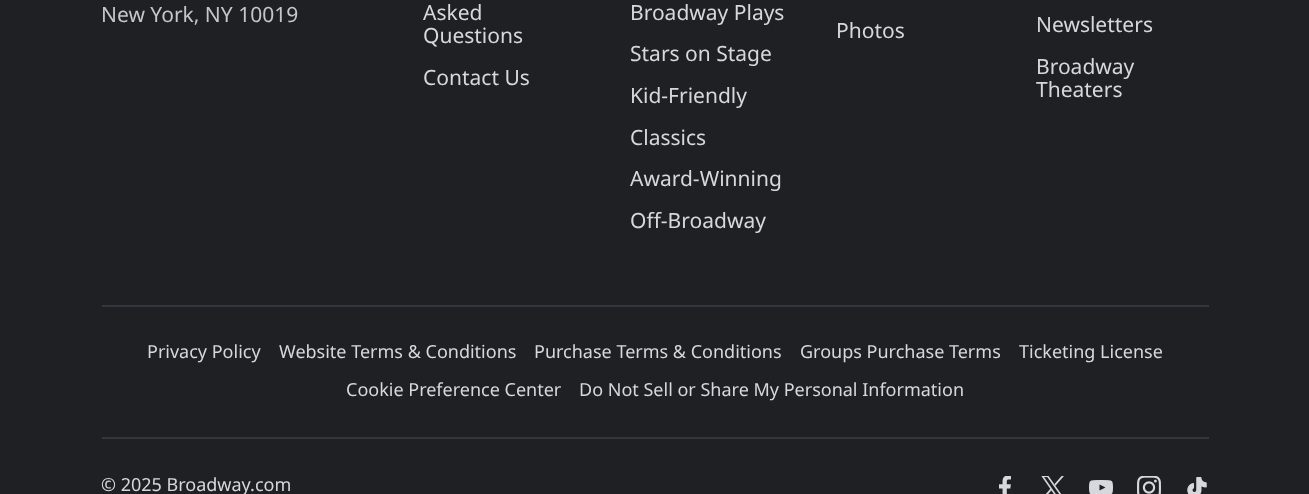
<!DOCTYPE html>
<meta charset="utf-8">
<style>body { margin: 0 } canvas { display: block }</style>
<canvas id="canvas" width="1309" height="494"></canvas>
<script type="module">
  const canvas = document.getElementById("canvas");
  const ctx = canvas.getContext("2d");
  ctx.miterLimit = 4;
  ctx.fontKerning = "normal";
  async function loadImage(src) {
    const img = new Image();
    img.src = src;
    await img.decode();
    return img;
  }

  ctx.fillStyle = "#1f2023";
  ctx.fillRect(0, 0, 1309, 494);
  ctx.font = "21px Noto Sans";
  ctx.fillStyle = "#c5c6cd";
  ctx.fillText("New York, NY 10019", 101, 22);
  ctx.fillStyle = "#d7d8dd";
  ctx.fillText("Asked", 423, 20);
  ctx.fillText("Questions", 423, 43);
  ctx.fillText("Contact Us", 423, 85);
  ctx.fillText("Broadway Plays", 630, 20);
  ctx.fillText("Stars on Stage", 630, 61);
  ctx.fillText("Kid-Friendly", 630, 103);
  ctx.fillText("Classics", 630, 145);
  ctx.fillText("Award-Winning", 630, 186);
  ctx.fillText("Off-Broadway", 630, 228);
  ctx.fillText("Photos", 836, 38);
  ctx.fillText("Newsletters", 1036, 32);
  ctx.fillText("Broadway", 1036, 74);
  ctx.fillText("Theaters", 1036, 97);
  ctx.fillStyle = "#343540";
  ctx.fillRect(102, 305, 1107, 2);
  ctx.fillRect(102, 437, 1107, 2);
  ctx.font = "18px Noto Sans";
  ctx.fillStyle = "#d7d8dd";
  ctx.fillText("Privacy Policy", 147, 358);
  ctx.fillText("Website Terms & Conditions", 279, 358);
  ctx.fillText("Purchase Terms & Conditions", 534, 358);
  ctx.fillText("Groups Purchase Terms", 800, 358);
  ctx.fillText("Ticketing License", 1019, 358);
  ctx.fillText("Cookie Preference Center", 346, 396);
  ctx.fillText("Do Not Sell or Share My Personal Information", 579, 396);
  ctx.fillText("© 2025 Broadway.com", 101, 491);
  ctx.drawImage(await loadImage("img1.png"), 999, 476, 12, 18);
  ctx.drawImage(await loadImage("img2.png"), 1041, 476, 23, 18);
  ctx.drawImage(await loadImage("img3.png"), 1089, 480, 24, 14);
  ctx.drawImage(await loadImage("img4.png"), 1137, 476, 24, 18);
  ctx.drawImage(await loadImage("img5.png"), 1187, 477, 20, 17);
</script>
